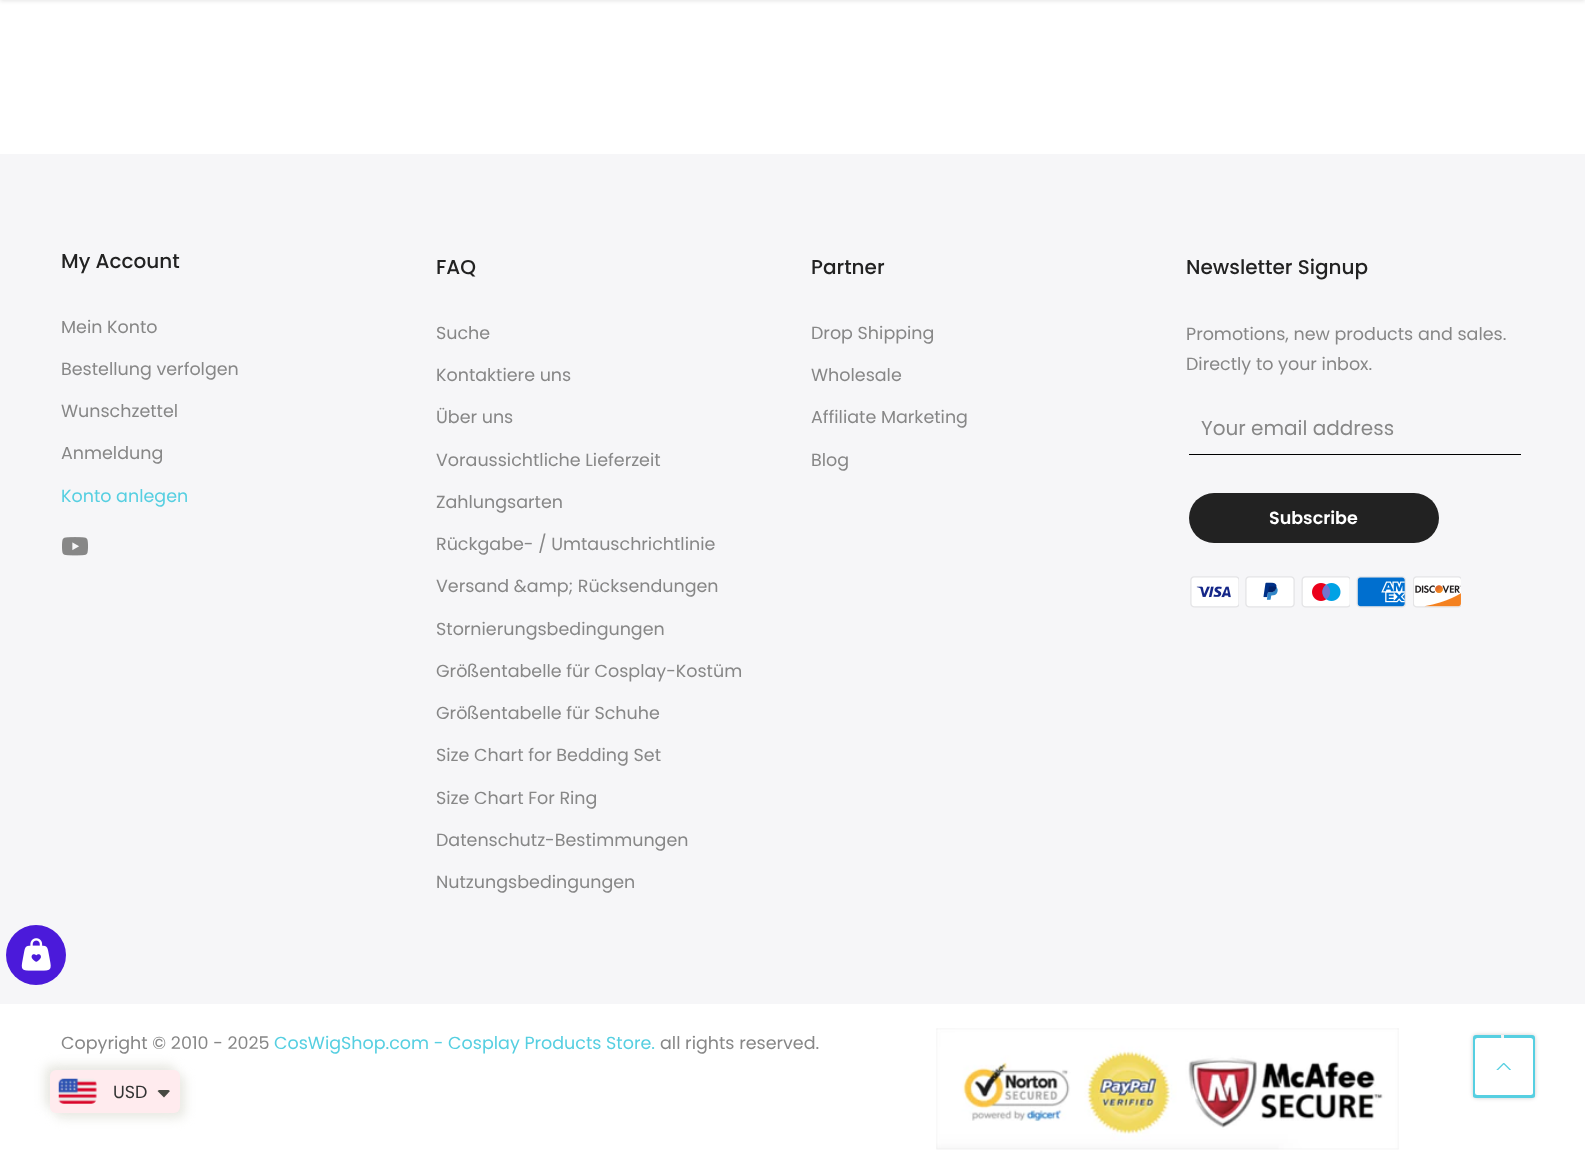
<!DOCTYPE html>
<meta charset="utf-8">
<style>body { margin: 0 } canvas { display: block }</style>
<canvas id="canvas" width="1585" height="1166"></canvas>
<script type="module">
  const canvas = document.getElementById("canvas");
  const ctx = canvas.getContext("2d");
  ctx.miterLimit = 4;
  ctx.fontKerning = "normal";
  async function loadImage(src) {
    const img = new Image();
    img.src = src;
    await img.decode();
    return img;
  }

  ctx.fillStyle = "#ffffff";
  ctx.fillRect(0, 0, 1585, 1166);
  ctx.fillStyle = "#f6f6f8";
  ctx.fillRect(0, 154, 1585, 850);
  ctx.fillStyle = "#4b1ada";
  ctx.beginPath();
  ctx.arc(36, 955, 30, 0, Math.PI * 2);
  ctx.fill();
  ctx.drawImage(await loadImage("img1.png"), 21, 938, 30, 33);
  ctx.fillStyle = "rgba(0, 0, 0, 0.1)";
  ctx.filter = "blur(2px)";
  ctx.beginPath();
  ctx.rect(0, -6, 1585, 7);
  ctx.fill();
  ctx.filter = "none";
  ctx.font = "500 20px Poppins";
  ctx.fillStyle = "#222222";
  ctx.fillText("My Account", 61, 268);
  ctx.font = "17.5px Poppins";
  ctx.fillStyle = "#878787";
  ctx.fillText("Mein Konto", 61, 333);
  ctx.fillText("Bestellung verfolgen", 61, 375);
  ctx.fillText("Wunschzettel", 61, 417);
  ctx.fillText("Anmeldung", 61, 459);
  ctx.fillStyle = "#56cfe1";
  ctx.fillText("Konto anlegen", 61, 502);
  ctx.drawImage(await loadImage("img2.png"), 62, 537, 26, 19);
  ctx.font = "500 20px Poppins";
  ctx.fillStyle = "#222222";
  ctx.fillText("FAQ", 436, 274);
  ctx.font = "17.5px Poppins";
  ctx.fillStyle = "#878787";
  ctx.fillText("Suche", 436, 339);
  ctx.fillText("Kontaktiere uns", 436, 381);
  ctx.fillText("Über uns", 436, 423);
  ctx.fillText("Voraussichtliche Lieferzeit", 436, 466);
  ctx.fillText("Zahlungsarten", 436, 508);
  ctx.fillText("Rückgabe- / Umtauschrichtlinie", 436, 550);
  ctx.fillText("Versand &amp; Rücksendungen", 436, 592);
  ctx.fillText("Stornierungsbedingungen", 436, 635);
  ctx.fillText("Größentabelle für Cosplay-Kostüm", 436, 677);
  ctx.fillText("Größentabelle für Schuhe", 436, 719);
  ctx.fillText("Size Chart for Bedding Set", 436, 761);
  ctx.fillText("Size Chart For Ring", 436, 804);
  ctx.fillText("Datenschutz-Bestimmungen", 436, 846);
  ctx.fillText("Nutzungsbedingungen", 436, 888);
  ctx.font = "500 20px Poppins";
  ctx.fillStyle = "#222222";
  ctx.fillText("Partner", 811, 274);
  ctx.font = "17.5px Poppins";
  ctx.fillStyle = "#878787";
  ctx.fillText("Drop Shipping", 811, 339);
  ctx.fillText("Wholesale", 811, 381);
  ctx.fillText("Affiliate Marketing", 811, 423);
  ctx.fillText("Blog", 811, 466);
  ctx.font = "500 20px Poppins";
  ctx.fillStyle = "#222222";
  ctx.fillText("Newsletter Signup", 1186, 274);
  ctx.font = "17.5px Poppins";
  ctx.fillStyle = "#878787";
  ctx.fillText("Promotions, new products and sales.", 1186, 340);
  ctx.fillText("Directly to your inbox.", 1186, 370);
  ctx.fillStyle = "#000000";
  ctx.fillRect(1189, 454, 332, 1);
  ctx.font = "20px Poppins";
  ctx.fillStyle = "#878787";
  ctx.fillText("Your email address", 1201, 435);
  ctx.fillStyle = "#222222";
  ctx.beginPath();
  ctx.roundRect(1189, 493, 250, 50, 25);
  ctx.fill();
  ctx.font = "600 17.5px Poppins";
  ctx.fillStyle = "#ffffff";
  ctx.fillText("Subscribe", 1269, 524);
  ctx.drawImage(await loadImage("img3.png"), 1190, 576, 49, 32);
  ctx.drawImage(await loadImage("img4.png"), 1245, 576, 50, 32);
  ctx.drawImage(await loadImage("img5.png"), 1301, 576, 49, 32);
  ctx.drawImage(await loadImage("img6.png"), 1356, 576, 50, 32);
  ctx.drawImage(await loadImage("img7.png"), 1413, 576, 48, 32);
  ctx.font = "17.5px Poppins";
  ctx.fillStyle = "#878787";
  ctx.fillText("Copyright © 2010 - 2025", 61, 1049);
  ctx.fillStyle = "#56cfe1";
  ctx.fillText("CosWigShop.com - Cosplay Products Store.", 274, 1049);
  ctx.fillStyle = "#878787";
  ctx.fillText("all rights reserved.", 660, 1049);
  ctx.drawImage(await loadImage("img8.png"), 936, 1028, 463, 122);
  ctx.fillStyle = "#e8e8e2";
  ctx.filter = "blur(5.5px)";
  ctx.beginPath();
  ctx.roundRect(45, 1065, 130, 43, 6);
  ctx.fill();
  ctx.filter = "none";
  ctx.filter = "blur(5.5px)";
  ctx.beginPath();
  ctx.roundRect(55, 1075, 130, 43, 6);
  ctx.fill();
  ctx.filter = "none";
  ctx.fillStyle = "#ffebee";
  ctx.beginPath();
  ctx.roundRect(50, 1070, 130, 43, 6);
  ctx.fill();
  ctx.drawImage(await loadImage("img9.png"), 58, 1078, 39, 26);
  ctx.fillStyle = "#333333";
  ctx.fillText("USD", 113, 1098);
  ctx.fillStyle = "#474942";
  ctx.beginPath();
  ctx.moveTo(160, 1090);
  ctx.bezierCurveTo(159, 1090, 158, 1090.5, 157.5, 1091);
  ctx.lineTo(164, 1097.5);
  ctx.lineTo(170, 1091);
  ctx.bezierCurveTo(169.5, 1090.5, 168.5, 1090, 167.5, 1090);
  ctx.closePath();
  ctx.fill();
  ctx.fillStyle = "rgba(0, 0, 0, 0.2)";
  ctx.filter = "blur(2px)";
  ctx.beginPath();
  ctx.roundRect(1473, 1035, 62, 63, 4);
  ctx.fill();
  ctx.filter = "none";
  ctx.fillStyle = "#56cfe1";
  ctx.beginPath();
  ctx.moveTo(1504, 1066);
  ctx.lineTo(1501, 1035);
  ctx.lineTo(1476, 1035);
  ctx.bezierCurveTo(1474, 1035, 1473, 1036, 1473, 1038);
  ctx.lineTo(1473, 1096);
  ctx.bezierCurveTo(1473, 1097, 1474, 1098, 1476, 1098);
  ctx.lineTo(1532, 1098);
  ctx.bezierCurveTo(1534, 1098, 1535, 1097, 1535, 1096);
  ctx.lineTo(1535, 1038);
  ctx.bezierCurveTo(1535, 1036, 1534, 1035, 1532, 1035);
  ctx.lineTo(1504, 1035);
  ctx.closePath();
  ctx.fill();
  ctx.fillStyle = "#f5f5f5";
  ctx.beginPath();
  ctx.moveTo(1504, 1066);
  ctx.lineTo(1504, 1035);
  ctx.lineTo(1501, 1035);
  ctx.closePath();
  ctx.fill();
  ctx.fillStyle = "#ffffff";
  ctx.beginPath();
  ctx.roundRect(1475, 1038, 58, 57, 2.5);
  ctx.fill();
  ctx.drawImage(await loadImage("img10.png"), 1496, 1063, 15, 7);
</script>
